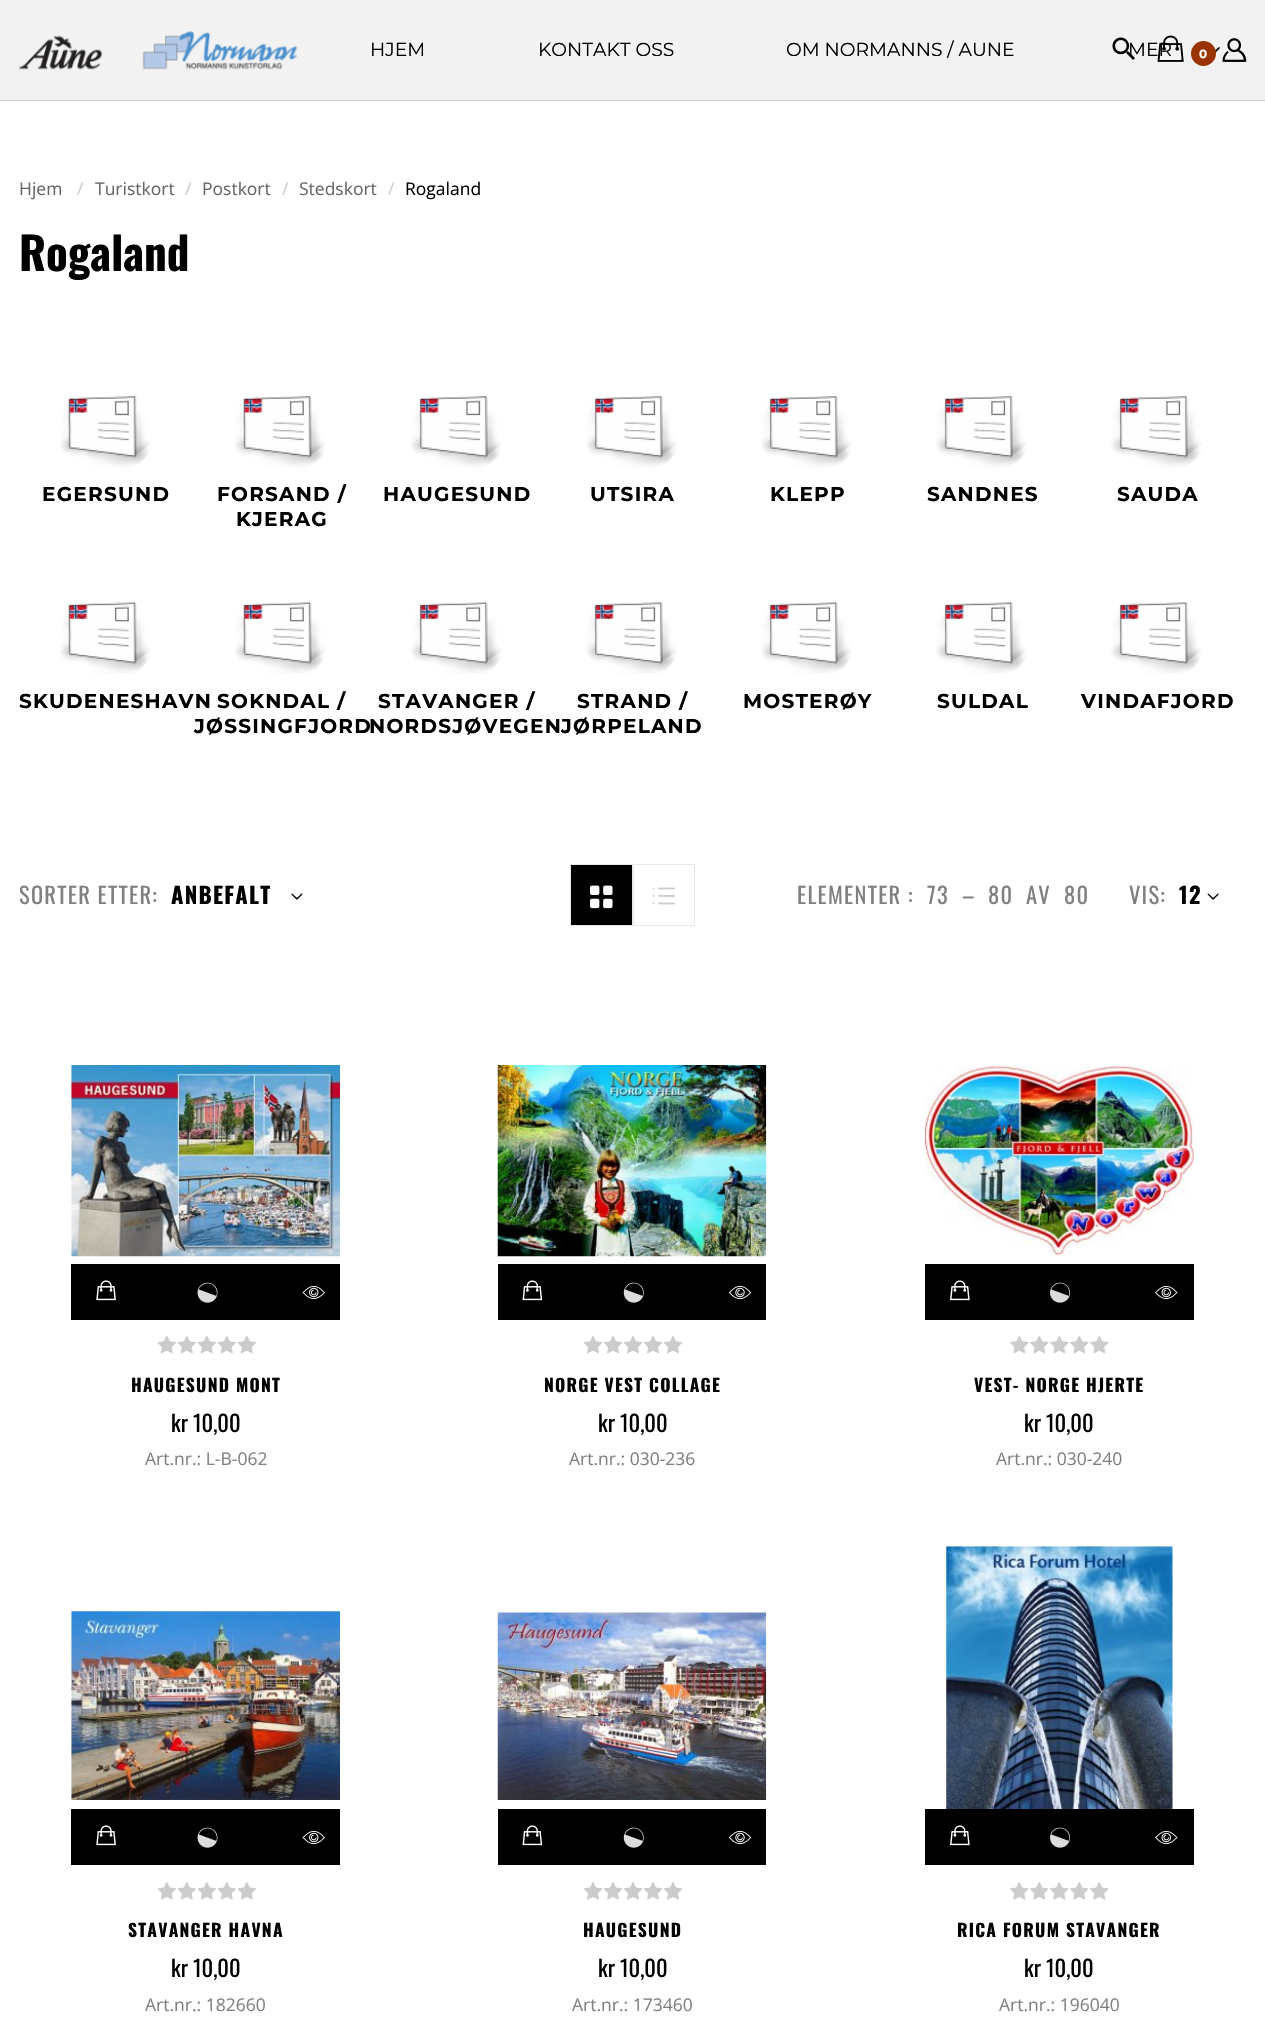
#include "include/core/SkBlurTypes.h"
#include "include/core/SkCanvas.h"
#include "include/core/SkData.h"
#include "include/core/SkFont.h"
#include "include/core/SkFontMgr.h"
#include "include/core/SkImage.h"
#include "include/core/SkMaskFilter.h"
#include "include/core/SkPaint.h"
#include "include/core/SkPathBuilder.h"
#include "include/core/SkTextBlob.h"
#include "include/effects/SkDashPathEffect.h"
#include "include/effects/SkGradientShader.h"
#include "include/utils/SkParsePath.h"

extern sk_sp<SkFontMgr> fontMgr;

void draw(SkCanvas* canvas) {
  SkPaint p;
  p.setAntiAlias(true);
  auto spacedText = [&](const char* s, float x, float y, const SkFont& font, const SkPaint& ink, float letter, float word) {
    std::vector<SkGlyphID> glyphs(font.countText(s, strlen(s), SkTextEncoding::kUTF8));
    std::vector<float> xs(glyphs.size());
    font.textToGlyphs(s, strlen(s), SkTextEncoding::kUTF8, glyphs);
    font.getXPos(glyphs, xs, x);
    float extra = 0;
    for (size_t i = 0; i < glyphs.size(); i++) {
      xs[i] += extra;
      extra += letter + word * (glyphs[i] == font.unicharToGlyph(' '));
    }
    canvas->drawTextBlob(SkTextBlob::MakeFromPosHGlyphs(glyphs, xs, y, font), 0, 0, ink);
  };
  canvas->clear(SK_ColorWHITE);
  p.setColor(SkColorSetRGB(242, 242, 242));
  canvas->drawRect(SkRect::MakeLTRB(0, 0, 1265, 100), p);
  p.setColor(SkColorSetRGB(204, 204, 204));
  canvas->drawRect(SkRect::MakeLTRB(0, 100, 1265, 101), p);
  canvas->drawImageRect(SkImages::DeferredFromEncodedData(SkData::MakeFromFileName("images/1.png")), SkRect::MakeLTRB(18, 31, 298, 70), SkSamplingOptions());
  canvas->drawImageRect(SkImages::DeferredFromEncodedData(SkData::MakeFromFileName("images/2.png")), SkRect::MakeLTRB(1215, 47, 1220, 53), SkSamplingOptions());
  p.setColor(SkColorSetRGB(153, 51, 0));
  canvas->drawCircle(1203.5f, 53.5f, 12.5f, p);
  canvas->drawImageRect(SkImages::DeferredFromEncodedData(SkData::MakeFromFileName("images/5.png")), SkRect::MakeLTRB(1222, 38, 1247, 62), SkSamplingOptions());
  canvas->drawImageRect(SkImages::DeferredFromEncodedData(SkData::MakeFromFileName("images/6.png")), SkRect::MakeLTRB(60, 396, 150, 468), SkSamplingOptions());
  canvas->drawImageRect(SkImages::DeferredFromEncodedData(SkData::MakeFromFileName("images/7.png")), SkRect::MakeLTRB(235, 396, 325, 468), SkSamplingOptions());
  canvas->drawImageRect(SkImages::DeferredFromEncodedData(SkData::MakeFromFileName("images/8.png")), SkRect::MakeLTRB(411, 396, 502, 468), SkSamplingOptions());
  canvas->drawImageRect(SkImages::DeferredFromEncodedData(SkData::MakeFromFileName("images/9.png")), SkRect::MakeLTRB(586, 396, 677, 468), SkSamplingOptions());
  canvas->drawImageRect(SkImages::DeferredFromEncodedData(SkData::MakeFromFileName("images/10.png")), SkRect::MakeLTRB(761, 396, 852, 468), SkSamplingOptions());
  canvas->drawImageRect(SkImages::DeferredFromEncodedData(SkData::MakeFromFileName("images/11.png")), SkRect::MakeLTRB(936, 396, 1027, 468), SkSamplingOptions());
  canvas->drawImageRect(SkImages::DeferredFromEncodedData(SkData::MakeFromFileName("images/12.png")), SkRect::MakeLTRB(1111, 396, 1202, 468), SkSamplingOptions());
  canvas->drawImageRect(SkImages::DeferredFromEncodedData(SkData::MakeFromFileName("images/13.png")), SkRect::MakeLTRB(60, 602, 151, 674), SkSamplingOptions());
  canvas->drawImageRect(SkImages::DeferredFromEncodedData(SkData::MakeFromFileName("images/14.png")), SkRect::MakeLTRB(235, 602, 326, 674), SkSamplingOptions());
  canvas->drawImageRect(SkImages::DeferredFromEncodedData(SkData::MakeFromFileName("images/15.png")), SkRect::MakeLTRB(411, 602, 502, 674), SkSamplingOptions());
  canvas->drawImageRect(SkImages::DeferredFromEncodedData(SkData::MakeFromFileName("images/16.png")), SkRect::MakeLTRB(586, 602, 677, 674), SkSamplingOptions());
  canvas->drawImageRect(SkImages::DeferredFromEncodedData(SkData::MakeFromFileName("images/17.png")), SkRect::MakeLTRB(761, 602, 852, 674), SkSamplingOptions());
  canvas->drawImageRect(SkImages::DeferredFromEncodedData(SkData::MakeFromFileName("images/18.png")), SkRect::MakeLTRB(936, 602, 1027, 674), SkSamplingOptions());
  canvas->drawImageRect(SkImages::DeferredFromEncodedData(SkData::MakeFromFileName("images/19.png")), SkRect::MakeLTRB(1111, 602, 1202, 674), SkSamplingOptions());
  canvas->drawImageRect(SkImages::DeferredFromEncodedData(SkData::MakeFromFileName("images/20.png")), SkRect::MakeLTRB(291, 893, 303, 900), SkSamplingOptions());
  p.setColor(SK_ColorBLACK);
  canvas->drawRect(SkRect::MakeLTRB(570.5f, 864.5f, 632.5f, 925.5f), p);
  p.setStyle(SkPaint::kStroke_Style);
  p.setStrokeWidth(1);
  p.setColor(SkColorSetRGB(231, 232, 236));
  canvas->drawRect(SkRect::MakeLTRB(570.5f, 864.5f, 632.5f, 925.5f), p);
  canvas->drawImageRect(SkImages::DeferredFromEncodedData(SkData::MakeFromFileName("images/21.png")), SkRect::MakeLTRB(590, 885, 613, 909), SkSamplingOptions());
  canvas->drawRect(SkRect::MakeLTRB(633.5f, 864.5f, 694.5f, 925.5f), p);
  canvas->drawImageRect(SkImages::DeferredFromEncodedData(SkData::MakeFromFileName("images/22.png")), SkRect::MakeLTRB(652, 887, 675, 905), SkSamplingOptions());
  canvas->drawImageRect(SkImages::DeferredFromEncodedData(SkData::MakeFromFileName("images/23.png")), SkRect::MakeLTRB(1207, 893, 1219, 900), SkSamplingOptions());
  canvas->drawImageRect(SkImages::DeferredFromEncodedData(SkData::MakeFromFileName("images/24.png")), SkRect::MakeLTRB(71, 1065, 340, 1257), SkSamplingOptions());
  p.setStyle(SkPaint::kFill_Style);
  p.setColor(SK_ColorBLACK);
  canvas->drawRect(SkRect::MakeLTRB(71, 1264, 340, 1320), p);
  canvas->drawImageRect(SkImages::DeferredFromEncodedData(SkData::MakeFromFileName("images/25.png")), SkRect::MakeLTRB(96, 1280, 116, 1301), SkSamplingOptions());
  canvas->drawImageRect(SkImages::DeferredFromEncodedData(SkData::MakeFromFileName("images/26.png")), SkRect::MakeLTRB(197, 1282, 218, 1303), SkSamplingOptions());
  canvas->drawImageRect(SkImages::DeferredFromEncodedData(SkData::MakeFromFileName("images/27.png")), SkRect::MakeLTRB(302, 1285, 325, 1300), SkSamplingOptions());
  canvas->drawImageRect(SkImages::DeferredFromEncodedData(SkData::MakeFromFileName("images/28.png")), SkRect::MakeLTRB(157, 1335, 176, 1354), SkSamplingOptions());
  canvas->drawImageRect(SkImages::DeferredFromEncodedData(SkData::MakeFromFileName("images/28.png")), SkRect::MakeLTRB(177, 1335, 196, 1354), SkSamplingOptions());
  canvas->drawImageRect(SkImages::DeferredFromEncodedData(SkData::MakeFromFileName("images/28.png")), SkRect::MakeLTRB(197, 1335, 216, 1354), SkSamplingOptions());
  canvas->drawImageRect(SkImages::DeferredFromEncodedData(SkData::MakeFromFileName("images/28.png")), SkRect::MakeLTRB(217, 1335, 236, 1354), SkSamplingOptions());
  canvas->drawImageRect(SkImages::DeferredFromEncodedData(SkData::MakeFromFileName("images/28.png")), SkRect::MakeLTRB(237, 1335, 256, 1354), SkSamplingOptions());
  canvas->drawImageRect(SkImages::DeferredFromEncodedData(SkData::MakeFromFileName("images/29.png")), SkRect::MakeLTRB(497, 1065, 767, 1257), SkSamplingOptions());
  canvas->drawRect(SkRect::MakeLTRB(498, 1264, 766, 1320), p);
  canvas->drawImageRect(SkImages::DeferredFromEncodedData(SkData::MakeFromFileName("images/30.png")), SkRect::MakeLTRB(522, 1280, 543, 1301), SkSamplingOptions());
  canvas->drawImageRect(SkImages::DeferredFromEncodedData(SkData::MakeFromFileName("images/31.png")), SkRect::MakeLTRB(623, 1282, 644, 1303), SkSamplingOptions());
  canvas->drawImageRect(SkImages::DeferredFromEncodedData(SkData::MakeFromFileName("images/32.png")), SkRect::MakeLTRB(728, 1285, 752, 1300), SkSamplingOptions());
  canvas->drawImageRect(SkImages::DeferredFromEncodedData(SkData::MakeFromFileName("images/33.png")), SkRect::MakeLTRB(583, 1335, 603, 1354), SkSamplingOptions());
  canvas->drawImageRect(SkImages::DeferredFromEncodedData(SkData::MakeFromFileName("images/33.png")), SkRect::MakeLTRB(603, 1335, 623, 1354), SkSamplingOptions());
  canvas->drawImageRect(SkImages::DeferredFromEncodedData(SkData::MakeFromFileName("images/33.png")), SkRect::MakeLTRB(623, 1335, 643, 1354), SkSamplingOptions());
  canvas->drawImageRect(SkImages::DeferredFromEncodedData(SkData::MakeFromFileName("images/33.png")), SkRect::MakeLTRB(643, 1335, 663, 1354), SkSamplingOptions());
  canvas->drawImageRect(SkImages::DeferredFromEncodedData(SkData::MakeFromFileName("images/33.png")), SkRect::MakeLTRB(663, 1335, 683, 1354), SkSamplingOptions());
  canvas->drawImageRect(SkImages::DeferredFromEncodedData(SkData::MakeFromFileName("images/34.png")), SkRect::MakeLTRB(925, 1066, 1194, 1255), SkSamplingOptions());
  canvas->drawRect(SkRect::MakeLTRB(925, 1264, 1194, 1320), p);
  canvas->drawImageRect(SkImages::DeferredFromEncodedData(SkData::MakeFromFileName("images/35.png")), SkRect::MakeLTRB(950, 1280, 970, 1301), SkSamplingOptions());
  canvas->drawImageRect(SkImages::DeferredFromEncodedData(SkData::MakeFromFileName("images/36.png")), SkRect::MakeLTRB(1050, 1282, 1070, 1303), SkSamplingOptions());
  canvas->drawImageRect(SkImages::DeferredFromEncodedData(SkData::MakeFromFileName("images/37.png")), SkRect::MakeLTRB(1155, 1285, 1178, 1300), SkSamplingOptions());
  canvas->drawImageRect(SkImages::DeferredFromEncodedData(SkData::MakeFromFileName("images/38.png")), SkRect::MakeLTRB(1010, 1335, 1029, 1354), SkSamplingOptions());
  canvas->drawImageRect(SkImages::DeferredFromEncodedData(SkData::MakeFromFileName("images/38.png")), SkRect::MakeLTRB(1030, 1335, 1049, 1354), SkSamplingOptions());
  canvas->drawImageRect(SkImages::DeferredFromEncodedData(SkData::MakeFromFileName("images/38.png")), SkRect::MakeLTRB(1050, 1335, 1069, 1354), SkSamplingOptions());
  canvas->drawImageRect(SkImages::DeferredFromEncodedData(SkData::MakeFromFileName("images/38.png")), SkRect::MakeLTRB(1070, 1335, 1089, 1354), SkSamplingOptions());
  canvas->drawImageRect(SkImages::DeferredFromEncodedData(SkData::MakeFromFileName("images/38.png")), SkRect::MakeLTRB(1090, 1335, 1109, 1354), SkSamplingOptions());
  canvas->drawImageRect(SkImages::DeferredFromEncodedData(SkData::MakeFromFileName("images/39.png")), SkRect::MakeLTRB(71, 1611, 340, 1800), SkSamplingOptions());
  canvas->drawRect(SkRect::MakeLTRB(71, 1809, 340, 1865), p);
  canvas->drawImageRect(SkImages::DeferredFromEncodedData(SkData::MakeFromFileName("images/25.png")), SkRect::MakeLTRB(96, 1825, 116, 1846), SkSamplingOptions());
  canvas->drawImageRect(SkImages::DeferredFromEncodedData(SkData::MakeFromFileName("images/26.png")), SkRect::MakeLTRB(197, 1827, 218, 1848), SkSamplingOptions());
  canvas->drawImageRect(SkImages::DeferredFromEncodedData(SkData::MakeFromFileName("images/27.png")), SkRect::MakeLTRB(302, 1830, 325, 1845), SkSamplingOptions());
  canvas->drawImageRect(SkImages::DeferredFromEncodedData(SkData::MakeFromFileName("images/40.png")), SkRect::MakeLTRB(157, 1882, 176, 1900), SkSamplingOptions());
  canvas->drawImageRect(SkImages::DeferredFromEncodedData(SkData::MakeFromFileName("images/40.png")), SkRect::MakeLTRB(177, 1882, 196, 1900), SkSamplingOptions());
  canvas->drawImageRect(SkImages::DeferredFromEncodedData(SkData::MakeFromFileName("images/40.png")), SkRect::MakeLTRB(197, 1882, 216, 1900), SkSamplingOptions());
  canvas->drawImageRect(SkImages::DeferredFromEncodedData(SkData::MakeFromFileName("images/40.png")), SkRect::MakeLTRB(217, 1882, 236, 1900), SkSamplingOptions());
  canvas->drawImageRect(SkImages::DeferredFromEncodedData(SkData::MakeFromFileName("images/40.png")), SkRect::MakeLTRB(237, 1882, 256, 1900), SkSamplingOptions());
  canvas->drawImageRect(SkImages::DeferredFromEncodedData(SkData::MakeFromFileName("images/41.png")), SkRect::MakeLTRB(497, 1612, 767, 1800), SkSamplingOptions());
  canvas->drawRect(SkRect::MakeLTRB(498, 1809, 766, 1865), p);
  canvas->drawImageRect(SkImages::DeferredFromEncodedData(SkData::MakeFromFileName("images/30.png")), SkRect::MakeLTRB(522, 1825, 543, 1846), SkSamplingOptions());
  canvas->drawImageRect(SkImages::DeferredFromEncodedData(SkData::MakeFromFileName("images/31.png")), SkRect::MakeLTRB(623, 1827, 644, 1848), SkSamplingOptions());
  canvas->drawImageRect(SkImages::DeferredFromEncodedData(SkData::MakeFromFileName("images/32.png")), SkRect::MakeLTRB(728, 1830, 752, 1845), SkSamplingOptions());
  canvas->drawImageRect(SkImages::DeferredFromEncodedData(SkData::MakeFromFileName("images/42.png")), SkRect::MakeLTRB(583, 1882, 603, 1900), SkSamplingOptions());
  canvas->drawImageRect(SkImages::DeferredFromEncodedData(SkData::MakeFromFileName("images/42.png")), SkRect::MakeLTRB(603, 1882, 623, 1900), SkSamplingOptions());
  canvas->drawImageRect(SkImages::DeferredFromEncodedData(SkData::MakeFromFileName("images/42.png")), SkRect::MakeLTRB(623, 1882, 643, 1900), SkSamplingOptions());
  canvas->drawImageRect(SkImages::DeferredFromEncodedData(SkData::MakeFromFileName("images/42.png")), SkRect::MakeLTRB(643, 1882, 663, 1900), SkSamplingOptions());
  canvas->drawImageRect(SkImages::DeferredFromEncodedData(SkData::MakeFromFileName("images/42.png")), SkRect::MakeLTRB(663, 1882, 683, 1900), SkSamplingOptions());
  canvas->drawImageRect(SkImages::DeferredFromEncodedData(SkData::MakeFromFileName("images/43.png")), SkRect::MakeLTRB(946, 1546, 1173, 1809), SkSamplingOptions());
  canvas->drawRect(SkRect::MakeLTRB(925, 1809, 1194, 1865), p);
  canvas->drawImageRect(SkImages::DeferredFromEncodedData(SkData::MakeFromFileName("images/35.png")), SkRect::MakeLTRB(950, 1825, 970, 1846), SkSamplingOptions());
  canvas->drawImageRect(SkImages::DeferredFromEncodedData(SkData::MakeFromFileName("images/36.png")), SkRect::MakeLTRB(1050, 1827, 1070, 1848), SkSamplingOptions());
  canvas->drawImageRect(SkImages::DeferredFromEncodedData(SkData::MakeFromFileName("images/37.png")), SkRect::MakeLTRB(1155, 1830, 1178, 1845), SkSamplingOptions());
  canvas->drawImageRect(SkImages::DeferredFromEncodedData(SkData::MakeFromFileName("images/44.png")), SkRect::MakeLTRB(1010, 1882, 1029, 1900), SkSamplingOptions());
  canvas->drawImageRect(SkImages::DeferredFromEncodedData(SkData::MakeFromFileName("images/44.png")), SkRect::MakeLTRB(1030, 1882, 1049, 1900), SkSamplingOptions());
  canvas->drawImageRect(SkImages::DeferredFromEncodedData(SkData::MakeFromFileName("images/44.png")), SkRect::MakeLTRB(1050, 1882, 1069, 1900), SkSamplingOptions());
  canvas->drawImageRect(SkImages::DeferredFromEncodedData(SkData::MakeFromFileName("images/44.png")), SkRect::MakeLTRB(1070, 1882, 1089, 1900), SkSamplingOptions());
  canvas->drawImageRect(SkImages::DeferredFromEncodedData(SkData::MakeFromFileName("images/44.png")), SkRect::MakeLTRB(1090, 1882, 1109, 1900), SkSamplingOptions());
  SkFont font1(fontMgr->matchFamilyStyle("Montserrat", SkFontStyle::Normal()), 18.75f);
  font1.setSubpixel(true);
  canvas->drawString("HJEM", 370, 56, font1, p);
  canvas->drawString("KONTAKT OSS", 538, 56, font1, p);
  canvas->drawString("OM NORMANNS / AUNE", 786, 56, font1, p);
  canvas->drawString("MER", 1128, 56, font1, p);
  canvas->drawImageRect(SkImages::DeferredFromEncodedData(SkData::MakeFromFileName("images/3.png")), SkRect::MakeLTRB(1112, 37, 1135, 60), SkSamplingOptions());
  canvas->drawImageRect(SkImages::DeferredFromEncodedData(SkData::MakeFromFileName("images/4.png")), SkRect::MakeLTRB(1157, 35, 1184, 62), SkSamplingOptions());
  SkFont font2(fontMgr->matchFamilyStyle("Montserrat", SkFontStyle::Bold()), 12);
  font2.setSubpixel(true);
  p.setColor(SK_ColorWHITE);
  canvas->drawString("0", 1199, 58, font2, p);
  SkFont font3(fontMgr->matchFamilyStyle("Open Sans", SkFontStyle::Normal()), 17.5f);
  font3.setSubpixel(true);
  p.setColor(SkColorSetRGB(102, 102, 102));
  canvas->drawString("Hjem", 19, 195, font3, p);
  p.setColor(SkColorSetRGB(204, 204, 204));
  canvas->drawString("/", 77, 195, font3, p);
  p.setColor(SkColorSetRGB(102, 102, 102));
  canvas->drawString("Turistkort", 95, 195, font3, p);
  p.setColor(SkColorSetRGB(204, 204, 204));
  canvas->drawString("/", 185, 195, font3, p);
  p.setColor(SkColorSetRGB(102, 102, 102));
  canvas->drawString("Postkort", 202, 195, font3, p);
  p.setColor(SkColorSetRGB(204, 204, 204));
  canvas->drawString("/", 282, 195, font3, p);
  p.setColor(SkColorSetRGB(102, 102, 102));
  canvas->drawString("Stedskort", 299, 195, font3, p);
  p.setColor(SkColorSetRGB(204, 204, 204));
  canvas->drawString("/", 388, 195, font3, p);
  p.setColor(SK_ColorBLACK);
  canvas->drawString("Rogaland", 405, 195, font3, p);
  SkFont font4(fontMgr->matchFamilyStyle("Oswald", SkFontStyle::Bold()), 45);
  font4.setSubpixel(true);
  canvas->drawString("Rogaland", 19, 271, font4, p);
  SkFont font5(fontMgr->matchFamilyStyle("Montserrat", SkFontStyle::Bold()), 20);
  font5.setSubpixel(true);
  spacedText("EGERSUND", 42, 501, font5, p, 1.25f, 0);
  spacedText("FORSAND /", 217, 501, font5, p, 1.25f, 0);
  spacedText("KJERAG", 236, 526, font5, p, 1.25f, 0);
  spacedText("HAUGESUND", 383, 501, font5, p, 1.25f, 0);
  spacedText("UTSIRA", 590, 501, font5, p, 1.25f, 0);
  spacedText("KLEPP", 770, 501, font5, p, 1.25f, 0);
  spacedText("SANDNES", 927, 501, font5, p, 1.25f, 0);
  spacedText("SAUDA", 1117, 501, font5, p, 1.25f, 0);
  spacedText("SKUDENESHAVN", 19, 708, font5, p, 1.25f, 0);
  spacedText("SOKNDAL /", 217, 708, font5, p, 1.25f, 0);
  spacedText("JØSSINGFJORD", 194, 733, font5, p, 1.25f, 0);
  spacedText("STAVANGER /", 378, 708, font5, p, 1.25f, 0);
  spacedText("NORDSJØVEGEN", 369, 733, font5, p, 1.25f, 0);
  spacedText("STRAND /", 577, 708, font5, p, 1.25f, 0);
  spacedText("JØRPELAND", 561, 733, font5, p, 1.25f, 0);
  spacedText("MOSTERØY", 743, 708, font5, p, 1.25f, 0);
  spacedText("SULDAL", 937, 708, font5, p, 1.25f, 0);
  spacedText("VINDAFJORD", 1081, 708, font5, p, 1.25f, 0);
  SkFont font6(fontMgr->matchFamilyStyle("Oswald", SkFontStyle::Normal()), 22.5f);
  font6.setSubpixel(true);
  p.setColor(SkColorSetRGB(128, 128, 128));
  spacedText("SORTER ETTER:", 19, 904, font6, p, 1.25f, 0);
  SkFont font7(fontMgr->matchFamilyStyle("Oswald", SkFontStyle::Bold()), 22.5f);
  font7.setSubpixel(true);
  p.setColor(SK_ColorBLACK);
  spacedText("ANBEFALT", 171, 904, font7, p, 1.25f, 0);
  p.setColor(SkColorSetRGB(128, 128, 128));
  spacedText("ELEMENTER :", 797, 904, font6, p, 1.25f, 0);
  spacedText("73", 927, 904, font6, p, 1.25f, 0);
  spacedText("–", 962, 904, font6, p, 1.25f, 0);
  spacedText("80", 988, 904, font6, p, 1.25f, 0);
  spacedText("AV", 1026, 904, font6, p, 1.25f, 0);
  spacedText("80", 1064, 904, font6, p, 1.25f, 0);
  spacedText("VIS:", 1129, 904, font6, p, 1.25f, 0);
  p.setColor(SK_ColorBLACK);
  spacedText("12", 1179, 904, font7, p, 1.25f, 0);
  SkFont font8(fontMgr->matchFamilyStyle("Oswald", SkFontStyle::Bold()), 17.5f);
  font8.setSubpixel(true);
  spacedText("HAUGESUND MONT", 131, 1392, font8, p, 1.25f, 0);
  canvas->drawString("kr 10,00", 171, 1432, font6, p);
  p.setColor(SkColorSetRGB(128, 128, 128));
  canvas->drawString("Art.nr.: L-B-062", 145, 1465, font3, p);
  p.setColor(SK_ColorBLACK);
  spacedText("NORGE VEST COLLAGE", 544, 1392, font8, p, 1.25f, 0);
  canvas->drawString("kr 10,00", 598, 1432, font6, p);
  p.setColor(SkColorSetRGB(128, 128, 128));
  canvas->drawString("Art.nr.: 030-236", 569, 1465, font3, p);
  p.setColor(SK_ColorBLACK);
  spacedText("VEST- NORGE HJERTE", 974, 1392, font8, p, 1.25f, 0);
  canvas->drawString("kr 10,00", 1024, 1432, font6, p);
  p.setColor(SkColorSetRGB(128, 128, 128));
  canvas->drawString("Art.nr.: 030-240", 996, 1465, font3, p);
  p.setColor(SK_ColorBLACK);
  spacedText("STAVANGER HAVNA", 128, 1937, font8, p, 1.25f, 0);
  canvas->drawString("kr 10,00", 171, 1977, font6, p);
  p.setColor(SkColorSetRGB(128, 128, 128));
  canvas->drawString("Art.nr.: 182660", 145, 2011, font3, p);
  p.setColor(SK_ColorBLACK);
  spacedText("HAUGESUND", 583, 1937, font8, p, 1.25f, 0);
  canvas->drawString("kr 10,00", 598, 1977, font6, p);
  p.setColor(SkColorSetRGB(128, 128, 128));
  canvas->drawString("Art.nr.: 173460", 572, 2011, font3, p);
  p.setColor(SK_ColorBLACK);
  spacedText("RICA FORUM STAVANGER", 957, 1937, font8, p, 1.25f, 0);
  canvas->drawString("kr 10,00", 1024, 1977, font6, p);
  p.setColor(SkColorSetRGB(128, 128, 128));
  canvas->drawString("Art.nr.: 196040", 999, 2011, font3, p);
}
